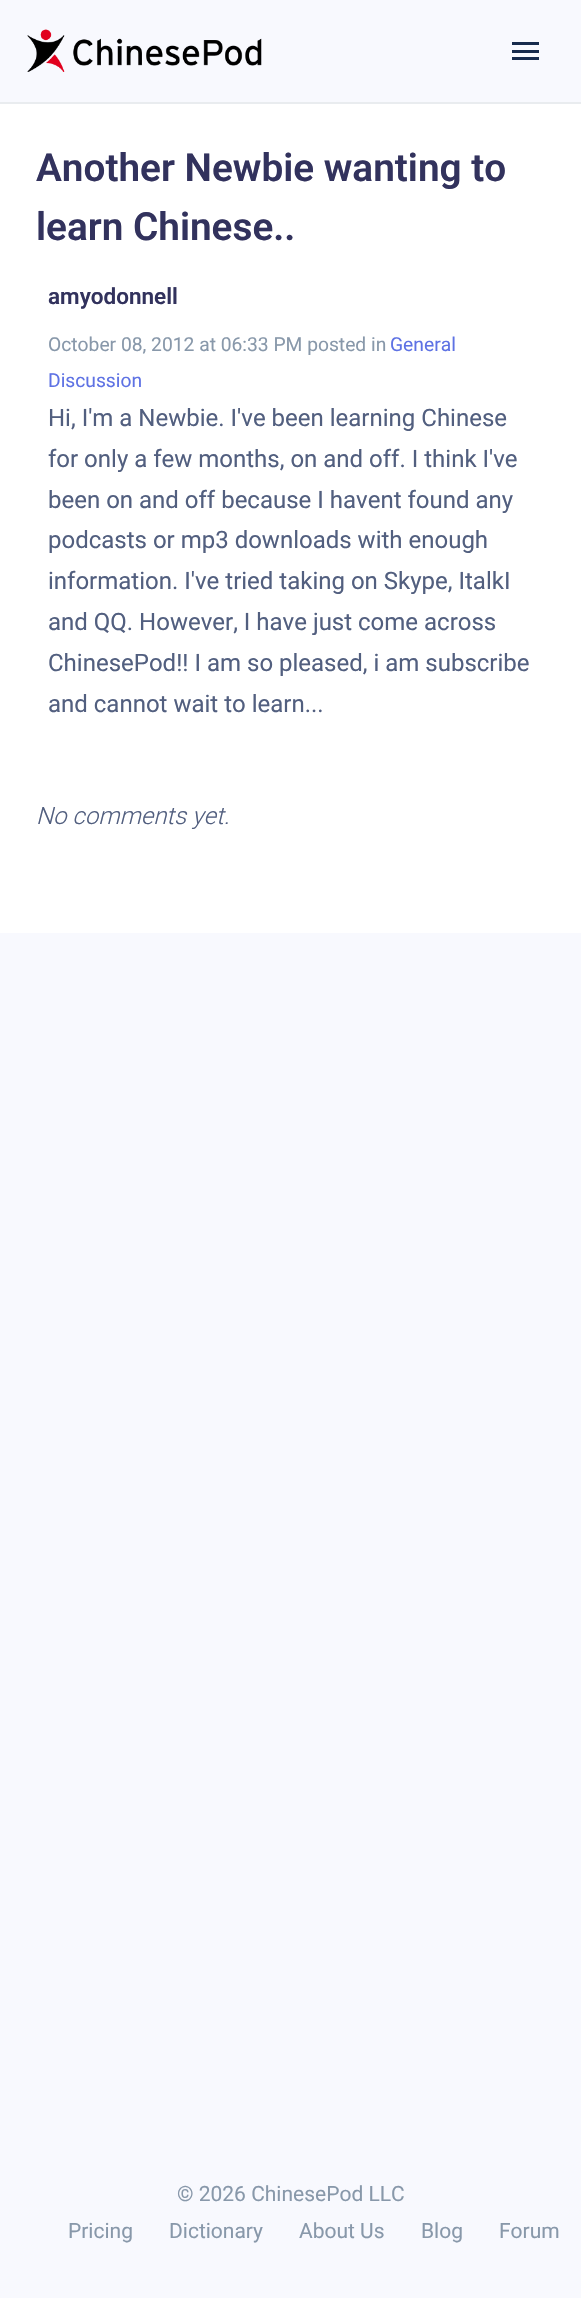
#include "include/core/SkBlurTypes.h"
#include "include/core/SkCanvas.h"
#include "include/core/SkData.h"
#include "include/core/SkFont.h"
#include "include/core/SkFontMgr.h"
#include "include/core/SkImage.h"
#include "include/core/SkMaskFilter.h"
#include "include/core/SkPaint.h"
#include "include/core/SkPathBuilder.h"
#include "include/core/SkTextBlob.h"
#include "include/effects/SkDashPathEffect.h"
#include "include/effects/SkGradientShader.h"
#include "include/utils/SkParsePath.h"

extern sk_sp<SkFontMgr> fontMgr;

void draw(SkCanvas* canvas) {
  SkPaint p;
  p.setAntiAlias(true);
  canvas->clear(SkColorSetRGB(248, 249, 254));
  p.setColor(SkColorSetRGB(233, 236, 239));
  canvas->drawRect(SkRect::MakeLTRB(0, 102, 581, 104), p);
  canvas->drawImageRect(SkImages::DeferredFromEncodedData(SkData::MakeFromFileName("images/1.png")), SkRect::MakeLTRB(27, 29, 262, 72), SkSamplingOptions());
  p.setColor(SkColorSetRGB(23, 43, 77));
  canvas->drawRect(SkRect::MakeLTRB(512, 42, 539, 45), p);
  canvas->drawRect(SkRect::MakeLTRB(512, 50, 539, 53), p);
  canvas->drawRect(SkRect::MakeLTRB(512, 57, 539, 60), p);
  p.setColor(SK_ColorWHITE);
  canvas->drawRect(SkRect::MakeLTRB(0, 104, 581, 933), p);
  SkFont font1(fontMgr->matchFamilyStyle("Roboto", SkFontStyle(600, SkFontStyle::kNormal_Width, SkFontStyle::kUpright_Slant)), 38.75f);
  font1.setSubpixel(true);
  p.setColor(SkColorSetRGB(50, 50, 93));
  canvas->drawString("Another Newbie wanting to", 36, 181, font1, p);
  canvas->drawString("learn Chinese..", 36, 240, font1, p);
  SkFont font2(fontMgr->matchFamilyStyle("Roboto", SkFontStyle(600, SkFontStyle::kNormal_Width, SkFontStyle::kUpright_Slant)), 22.5f);
  font2.setSubpixel(true);
  canvas->drawString("amyodonnell", 48, 304, font2, p);
  SkFont font3(fontMgr->matchFamilyStyle("Roboto", SkFontStyle::Normal()), 19.25f);
  font3.setSubpixel(true);
  p.setColor(SkColorSetRGB(136, 152, 170));
  canvas->drawString("October 08, 2012 at 06:33 PM posted in", 48, 351, font3, p);
  p.setColor(SkColorSetRGB(94, 114, 228));
  canvas->drawString("General", 390, 351, font3, p);
  canvas->drawString("Discussion", 48, 387, font3, p);
  SkFont font4(fontMgr->matchFamilyStyle("Roboto", SkFontStyle::Normal()), 24);
  font4.setSubpixel(true);
  p.setColor(SkColorSetRGB(82, 95, 127));
  canvas->drawString("Hi, I'm a Newbie. I've been learning Chinese", 48, 426, font4, p);
  canvas->drawString("for only a few months, on and off. I think I've", 48, 467, font4, p);
  canvas->drawString("been on and off because I havent found any", 48, 508, font4, p);
  canvas->drawString("podcasts or mp3 downloads with enough", 48, 548, font4, p);
  canvas->drawString("information. I've tried taking on Skype, ItalkI", 48, 589, font4, p);
  canvas->drawString("and QQ. However, I have just come across", 48, 630, font4, p);
  canvas->drawString("ChinesePod!! I am so pleased, i am subscribe", 48, 671, font4, p);
  canvas->drawString("and cannot wait to learn...", 48, 712, font4, p);
  SkFont font5(fontMgr->matchFamilyStyle("Roboto", SkFontStyle(300, SkFontStyle::kNormal_Width, SkFontStyle::kItalic_Slant)), 24);
  font5.setSubpixel(true);
  canvas->drawString("No comments yet.", 36, 824, font5, p);
  SkFont font6(fontMgr->matchFamilyStyle("Roboto", SkFontStyle::Normal()), 21);
  font6.setSubpixel(true);
  p.setColor(SkColorSetRGB(136, 152, 170));
  canvas->drawString("© 2026 ChinesePod LLC", 177, 2201, font6, p);
  canvas->drawString("Pricing", 68, 2238, font6, p);
  canvas->drawString("Dictionary", 169, 2238, font6, p);
  canvas->drawString("About Us", 299, 2238, font6, p);
  canvas->drawString("Blog", 421, 2238, font6, p);
  canvas->drawString("Forum", 499, 2238, font6, p);
}
